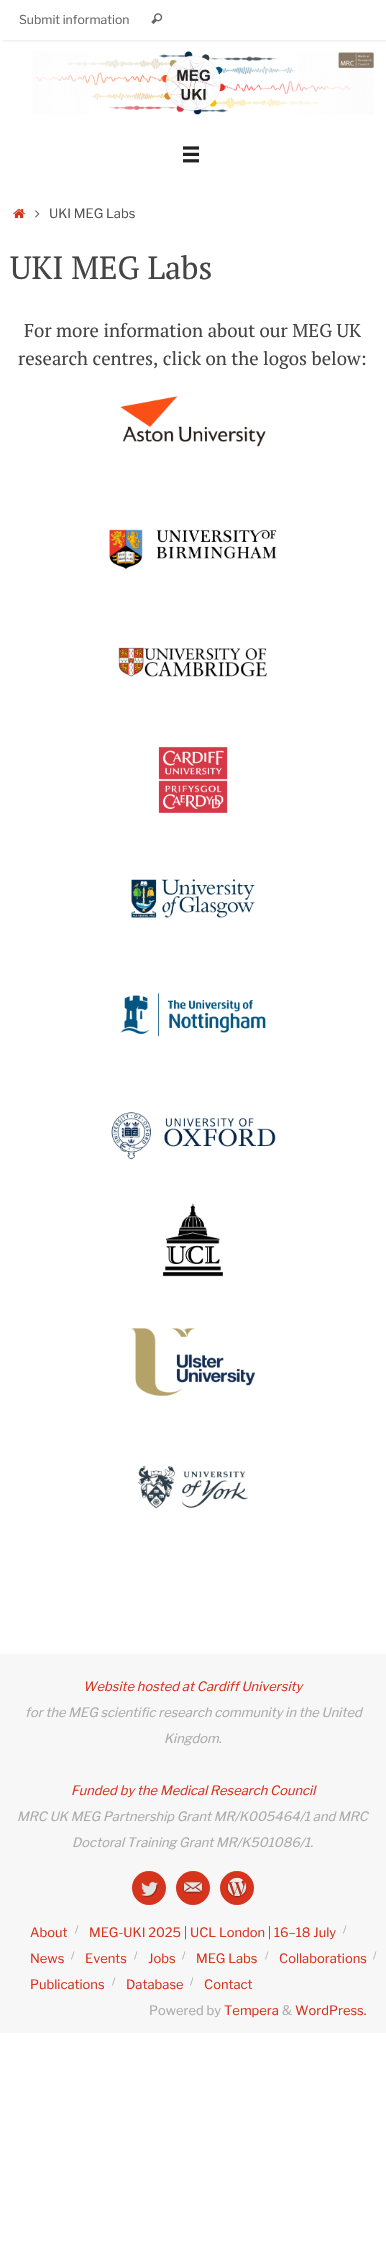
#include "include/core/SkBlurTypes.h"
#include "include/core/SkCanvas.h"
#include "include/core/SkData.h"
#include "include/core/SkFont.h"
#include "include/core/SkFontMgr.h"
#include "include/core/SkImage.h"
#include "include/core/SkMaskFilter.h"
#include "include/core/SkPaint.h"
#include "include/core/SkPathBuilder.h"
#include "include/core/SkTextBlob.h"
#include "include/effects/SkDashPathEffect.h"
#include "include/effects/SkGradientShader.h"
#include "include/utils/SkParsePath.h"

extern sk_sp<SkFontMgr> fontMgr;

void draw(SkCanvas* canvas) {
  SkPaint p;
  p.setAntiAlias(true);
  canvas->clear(SK_ColorWHITE);
  canvas->save();
  canvas->clipRect(SkRect::MakeLTRB(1, 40, 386, 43));
  p.setColor(SkColorSetRGB(215, 215, 215));
  p.setMaskFilter(SkMaskFilter::MakeBlur(kNormal_SkBlurStyle, 1.5f));
  canvas->drawRect(SkRect::MakeLTRB(3, 0, 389, 40), p);
  p.setMaskFilter(nullptr);
  canvas->restore();
  canvas->drawImageRect(SkImages::DeferredFromEncodedData(SkData::MakeFromFileName("images/1.png")), SkRect::MakeLTRB(151, 13, 163, 25), SkSamplingOptions());
  canvas->drawImageRect(SkImages::DeferredFromEncodedData(SkData::MakeFromFileName("images/2.png")), SkRect::MakeLTRB(32, 51, 374, 115), SkSamplingOptions());
  canvas->drawImageRect(SkImages::DeferredFromEncodedData(SkData::MakeFromFileName("images/3.png")), SkRect::MakeLTRB(183, 146, 199, 163), SkSamplingOptions());
  canvas->drawImageRect(SkImages::DeferredFromEncodedData(SkData::MakeFromFileName("images/4.png")), SkRect::MakeLTRB(13, 208, 25, 219), SkSamplingOptions());
  canvas->drawImageRect(SkImages::DeferredFromEncodedData(SkData::MakeFromFileName("images/5.png")), SkRect::MakeLTRB(35, 210, 40, 218), SkSamplingOptions());
  canvas->drawImageRect(SkImages::DeferredFromEncodedData(SkData::MakeFromFileName("images/6.png")), SkRect::MakeLTRB(120, 396, 266, 447), SkSamplingOptions());
  canvas->drawImageRect(SkImages::DeferredFromEncodedData(SkData::MakeFromFileName("images/7.png")), SkRect::MakeLTRB(109, 529, 277, 570), SkSamplingOptions());
  canvas->drawImageRect(SkImages::DeferredFromEncodedData(SkData::MakeFromFileName("images/8.png")), SkRect::MakeLTRB(118, 647, 268, 677), SkSamplingOptions());
  canvas->drawImageRect(SkImages::DeferredFromEncodedData(SkData::MakeFromFileName("images/9.png")), SkRect::MakeLTRB(158, 747, 228, 813), SkSamplingOptions());
  canvas->drawImageRect(SkImages::DeferredFromEncodedData(SkData::MakeFromFileName("images/10.png")), SkRect::MakeLTRB(131, 879, 255, 918), SkSamplingOptions());
  canvas->drawImageRect(SkImages::DeferredFromEncodedData(SkData::MakeFromFileName("images/11.png")), SkRect::MakeLTRB(120, 993, 266, 1037), SkSamplingOptions());
  canvas->drawImageRect(SkImages::DeferredFromEncodedData(SkData::MakeFromFileName("images/12.png")), SkRect::MakeLTRB(111, 1112, 276, 1160), SkSamplingOptions());
  canvas->drawImageRect(SkImages::DeferredFromEncodedData(SkData::MakeFromFileName("images/13.png")), SkRect::MakeLTRB(162, 1203, 223, 1277), SkSamplingOptions());
  canvas->drawImageRect(SkImages::DeferredFromEncodedData(SkData::MakeFromFileName("images/14.png")), SkRect::MakeLTRB(131, 1328, 256, 1396), SkSamplingOptions());
  canvas->drawImageRect(SkImages::DeferredFromEncodedData(SkData::MakeFromFileName("images/15.png")), SkRect::MakeLTRB(138, 1465, 248, 1509), SkSamplingOptions());
  p.setColor(SkColorSetRGB(247, 247, 247));
  canvas->drawRect(SkRect::MakeLTRB(0, 1654, 386, 2033), p);
  p.setColor(SkColorSetRGB(214, 52, 29));
  canvas->drawCircle(149, 1888, 17, p);
  canvas->drawImageRect(SkImages::DeferredFromEncodedData(SkData::MakeFromFileName("images/16.png")), SkRect::MakeLTRB(141, 1882, 159, 1897), SkSamplingOptions());
  canvas->drawCircle(193, 1888, 17, p);
  canvas->drawImageRect(SkImages::DeferredFromEncodedData(SkData::MakeFromFileName("images/17.png")), SkRect::MakeLTRB(183, 1882, 203, 1894), SkSamplingOptions());
  canvas->drawCircle(237, 1888, 17, p);
  canvas->drawImageRect(SkImages::DeferredFromEncodedData(SkData::MakeFromFileName("images/18.png")), SkRect::MakeLTRB(227, 1877, 247, 1898), SkSamplingOptions());
  SkFont font1(fontMgr->matchFamilyStyle("Libre Franklin", SkFontStyle(100, SkFontStyle::kNormal_Width, SkFontStyle::kUpright_Slant)), 12.25f);
  font1.setSubpixel(true);
  p.setColor(SkColorSetRGB(102, 102, 102));
  canvas->drawString("Submit information", 19, 24, font1, p);
  SkFont font2(fontMgr->matchFamilyStyle("Libre Franklin", SkFontStyle(100, SkFontStyle::kNormal_Width, SkFontStyle::kUpright_Slant)), 12.95f);
  font2.setSubpixel(true);
  p.setColor(SkColorSetRGB(85, 85, 85));
  canvas->drawString("UKI MEG Labs", 49, 218, font2, p);
  SkFont font3(fontMgr->matchFamilyStyle("PT Serif", SkFontStyle::Normal()), 32);
  font3.setSubpixel(true);
  p.setColor(SkColorSetRGB(68, 68, 68));
  canvas->drawString("UKI MEG Labs", 10, 279, font3, p);
  SkFont font4(fontMgr->matchFamilyStyle("PT Serif", SkFontStyle::Normal()), 18.6f);
  font4.setSubpixel(true);
  canvas->drawString("For more information about our MEG UK", 24, 337, font4, p);
  canvas->drawString("research centres, click on the logos below:", 18, 365, font4, p);
  SkFont font5(fontMgr->matchFamilyStyle("Libre Franklin", SkFontStyle(100, SkFontStyle::kNormal_Width, SkFontStyle::kItalic_Slant)), 12.95f);
  font5.setSubpixel(true);
  p.setColor(SkColorSetRGB(214, 52, 29));
  canvas->drawString("Website hosted at Cardiff University", 83, 1691, font5, p);
  p.setColor(SkColorSetRGB(170, 170, 170));
  canvas->drawString("for the MEG scientific research community in the United", 25, 1717, font5, p);
  canvas->drawString("Kingdom.", 164, 1743, font5, p);
  p.setColor(SkColorSetRGB(214, 52, 29));
  canvas->drawString("Funded by the Medical Research Council", 71, 1795, font5, p);
  p.setColor(SkColorSetRGB(170, 170, 170));
  canvas->drawString("MRC UK MEG Partnership Grant MR/K005464/1 and MRC", 17, 1821, font5, p);
  canvas->drawString("Doctoral Training Grant MR/K501086/1.", 72, 1847, font5, p);
  p.setColor(SkColorSetRGB(214, 52, 29));
  canvas->drawString("About", 30, 1937, font2, p);
  SkFont font6(fontMgr->matchFamilyStyle("Libre Franklin", SkFontStyle(100, SkFontStyle::kNormal_Width, SkFontStyle::kUpright_Slant)), 10);
  font6.setSubpixel(true);
  p.setColor(SkColorSetRGB(170, 170, 170));
  canvas->drawString("/", 75, 1933, font6, p);
  p.setColor(SkColorSetRGB(214, 52, 29));
  canvas->drawString("MEG-UKI 2025 | UCL London | 16–18 July", 89, 1937, font2, p);
  p.setColor(SkColorSetRGB(170, 170, 170));
  canvas->drawString("/", 343, 1933, font6, p);
  p.setColor(SkColorSetRGB(214, 52, 29));
  canvas->drawString("News", 30, 1963, font2, p);
  p.setColor(SkColorSetRGB(170, 170, 170));
  canvas->drawString("/", 71, 1959, font6, p);
  p.setColor(SkColorSetRGB(214, 52, 29));
  canvas->drawString("Events", 85, 1963, font2, p);
  p.setColor(SkColorSetRGB(170, 170, 170));
  canvas->drawString("/", 134, 1959, font6, p);
  p.setColor(SkColorSetRGB(214, 52, 29));
  canvas->drawString("Jobs", 148, 1963, font2, p);
  p.setColor(SkColorSetRGB(170, 170, 170));
  canvas->drawString("/", 182, 1959, font6, p);
  p.setColor(SkColorSetRGB(214, 52, 29));
  canvas->drawString("MEG Labs", 196, 1963, font2, p);
  p.setColor(SkColorSetRGB(170, 170, 170));
  canvas->drawString("/", 265, 1959, font6, p);
  p.setColor(SkColorSetRGB(214, 52, 29));
  canvas->drawString("Collaborations", 279, 1963, font2, p);
  p.setColor(SkColorSetRGB(170, 170, 170));
  canvas->drawString("/", 373, 1959, font6, p);
  p.setColor(SkColorSetRGB(214, 52, 29));
  canvas->drawString("Publications", 30, 1989, font2, p);
  p.setColor(SkColorSetRGB(170, 170, 170));
  canvas->drawString("/", 112, 1985, font6, p);
  p.setColor(SkColorSetRGB(214, 52, 29));
  canvas->drawString("Database", 126, 1989, font2, p);
  p.setColor(SkColorSetRGB(170, 170, 170));
  canvas->drawString("/", 190, 1985, font6, p);
  p.setColor(SkColorSetRGB(214, 52, 29));
  canvas->drawString("Contact", 204, 1989, font2, p);
  p.setColor(SkColorSetRGB(170, 170, 170));
  canvas->drawString("Powered by", 149, 2015, font2, p);
  p.setColor(SkColorSetRGB(214, 52, 29));
  canvas->drawString("Tempera", 224, 2015, font2, p);
  p.setColor(SkColorSetRGB(170, 170, 170));
  canvas->drawString("&", 282, 2015, font2, p);
  p.setColor(SkColorSetRGB(214, 52, 29));
  canvas->drawString("WordPress.", 295, 2015, font2, p);
}
